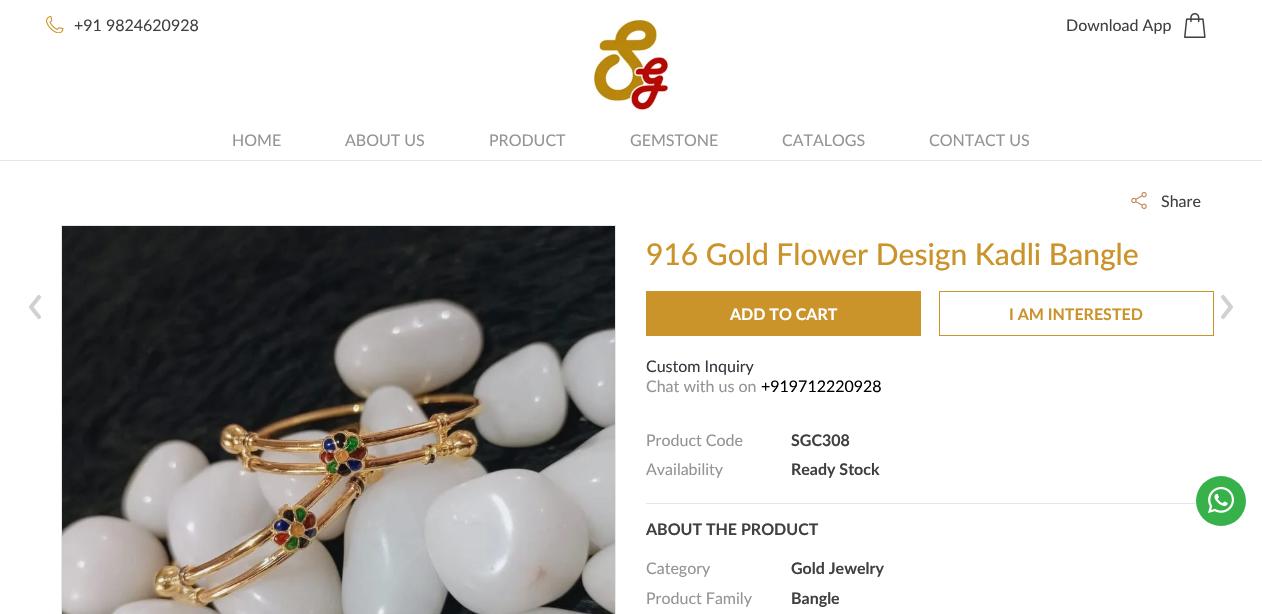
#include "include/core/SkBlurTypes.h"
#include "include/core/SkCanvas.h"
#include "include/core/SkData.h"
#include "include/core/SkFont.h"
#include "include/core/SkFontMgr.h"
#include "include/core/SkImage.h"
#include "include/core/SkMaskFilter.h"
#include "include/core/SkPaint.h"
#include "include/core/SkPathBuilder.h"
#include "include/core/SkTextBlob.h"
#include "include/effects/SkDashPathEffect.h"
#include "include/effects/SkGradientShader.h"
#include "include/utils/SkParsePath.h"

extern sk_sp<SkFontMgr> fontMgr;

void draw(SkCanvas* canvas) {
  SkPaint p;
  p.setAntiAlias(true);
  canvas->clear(SK_ColorWHITE);
  p.setColor(SkColorSetRGB(229, 230, 231));
  canvas->drawRect(SkRect::MakeLTRB(0, 160, 1262, 161), p);
  canvas->drawImageRect(SkImages::DeferredFromEncodedData(SkData::MakeFromFileName("images/1.png")), SkRect::MakeLTRB(46, 16, 64, 33), SkSamplingOptions());
  canvas->drawImageRect(SkImages::DeferredFromEncodedData(SkData::MakeFromFileName("images/2.png")), SkRect::MakeLTRB(592, 19, 672, 111), SkSamplingOptions());
  canvas->drawImageRect(SkImages::DeferredFromEncodedData(SkData::MakeFromFileName("images/3.png")), SkRect::MakeLTRB(1184, 13, 1206, 38), SkSamplingOptions());
  p.setStyle(SkPaint::kStroke_Style);
  p.setStrokeWidth(4.1f);
  p.setStrokeCap(SkPaint::kRound_Cap);
  p.setStrokeJoin(SkPaint::kRound_Join);
  p.setColor(SkColorSetRGB(207, 209, 210));
  canvas->drawPath(SkPathBuilder().moveTo(39, 297).lineTo(31, 307).lineTo(39, 317).detach(), p);
  canvas->drawImageRect(SkImages::DeferredFromEncodedData(SkData::MakeFromFileName("images/4.png")), SkRect::MakeLTRB(1131, 192, 1147, 209), SkSamplingOptions());
  p.setStrokeWidth(1);
  p.setStrokeCap(SkPaint::kButt_Cap);
  p.setStrokeJoin(SkPaint::kMiter_Join);
  p.setColor(SkColorSetRGB(229, 230, 231));
  canvas->drawRect(SkRect::MakeLTRB(61.5f, 225.5f, 615.5f, 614.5f), p);
  canvas->drawImageRect(SkImages::DeferredFromEncodedData(SkData::MakeFromFileName("images/5.png")), SkRect::MakeLTRB(62, 226, 615, 614), SkSamplingOptions());
  p.setStyle(SkPaint::kFill_Style);
  p.setColor(SkColorSetRGB(202, 148, 43));
  canvas->drawRect(SkRect::MakeLTRB(646, 291, 921, 336), p);
  p.setStyle(SkPaint::kStroke_Style);
  canvas->drawRect(SkRect::MakeLTRB(939.5f, 291.5f, 1213.5f, 335.5f), p);
  p.setStyle(SkPaint::kFill_Style);
  p.setColor(SkColorSetRGB(229, 230, 231));
  canvas->drawRect(SkRect::MakeLTRB(646, 503, 1201, 504), p);
  p.setStyle(SkPaint::kStroke_Style);
  p.setStrokeWidth(4.1f);
  p.setStrokeCap(SkPaint::kRound_Cap);
  p.setStrokeJoin(SkPaint::kRound_Join);
  p.setColor(SkColorSetRGB(207, 209, 210));
  canvas->drawPath(SkPathBuilder().moveTo(1223, 317).lineTo(1231, 307).lineTo(1223, 297).detach(), p);
  p.setStyle(SkPaint::kFill_Style);
  p.setColor(SkColorSetRGB(55, 178, 74));
  canvas->drawCircle(1221, 501, 25, p);
  canvas->drawImageRect(SkImages::DeferredFromEncodedData(SkData::MakeFromFileName("images/6.png")), SkRect::MakeLTRB(1208, 487, 1234, 513), SkSamplingOptions());
  SkFont font1(fontMgr->matchFamilyStyle("Lato", SkFontStyle::Normal()), 16);
  font1.setSubpixel(true);
  p.setColor(SkColorSetRGB(64, 64, 65));
  canvas->drawString("+91 9824620928", 74, 31, font1, p);
  canvas->drawString("Download App", 1066, 31, font1, p);
  p.setColor(SkColorSetRGB(146, 148, 151));
  canvas->drawString("HOME", 232, 146, font1, p);
  canvas->drawString("ABOUT US", 345, 146, font1, p);
  canvas->drawString("PRODUCT", 489, 146, font1, p);
  canvas->drawString("GEMSTONE", 630, 146, font1, p);
  canvas->drawString("CATALOGS", 782, 146, font1, p);
  canvas->drawString("CONTACT US", 929, 146, font1, p);
  p.setColor(SkColorSetRGB(64, 64, 65));
  canvas->drawString("Share", 1161, 207, font1, p);
  SkFont font2(fontMgr->matchFamilyStyle("Lato", SkFontStyle(500, SkFontStyle::kNormal_Width, SkFontStyle::kUpright_Slant)), 30);
  font2.setSubpixel(true);
  p.setColor(SkColorSetRGB(202, 148, 43));
  canvas->drawString("916 Gold Flower Design Kadli Bangle", 646, 265, font2, p);
  SkFont font3(fontMgr->matchFamilyStyle("Lato", SkFontStyle::Bold()), 16);
  font3.setSubpixel(true);
  p.setColor(SK_ColorWHITE);
  canvas->drawString("ADD TO CART", 730, 320, font3, p);
  p.setColor(SkColorSetRGB(202, 148, 43));
  canvas->drawString("I AM INTERESTED", 1009, 320, font3, p);
  p.setColor(SkColorSetRGB(52, 58, 64));
  canvas->drawString("Custom Inquiry", 646, 372, font1, p);
  p.setColor(SkColorSetRGB(146, 148, 151));
  canvas->drawString("Chat with us on", 646, 392, font1, p);
  p.setColor(SK_ColorBLACK);
  canvas->drawString("+919712220928", 761, 392, font1, p);
  p.setColor(SkColorSetRGB(146, 148, 151));
  canvas->drawString("Product Code", 646, 446, font1, p);
  p.setColor(SkColorSetRGB(64, 64, 65));
  canvas->drawString("SGC308", 791, 446, font3, p);
  p.setColor(SkColorSetRGB(146, 148, 151));
  canvas->drawString("Availability", 646, 475, font1, p);
  p.setColor(SkColorSetRGB(64, 64, 65));
  canvas->drawString("Ready Stock", 791, 475, font3, p);
  canvas->drawString("ABOUT THE PRODUCT", 646, 535, font3, p);
  p.setColor(SkColorSetRGB(146, 148, 151));
  canvas->drawString("Category", 646, 574, font1, p);
  p.setColor(SkColorSetRGB(64, 64, 65));
  canvas->drawString("Gold Jewelry", 791, 574, font3, p);
  p.setColor(SkColorSetRGB(146, 148, 151));
  canvas->drawString("Product Family", 646, 604, font1, p);
  p.setColor(SkColorSetRGB(64, 64, 65));
  canvas->drawString("Bangle", 791, 604, font3, p);
}
